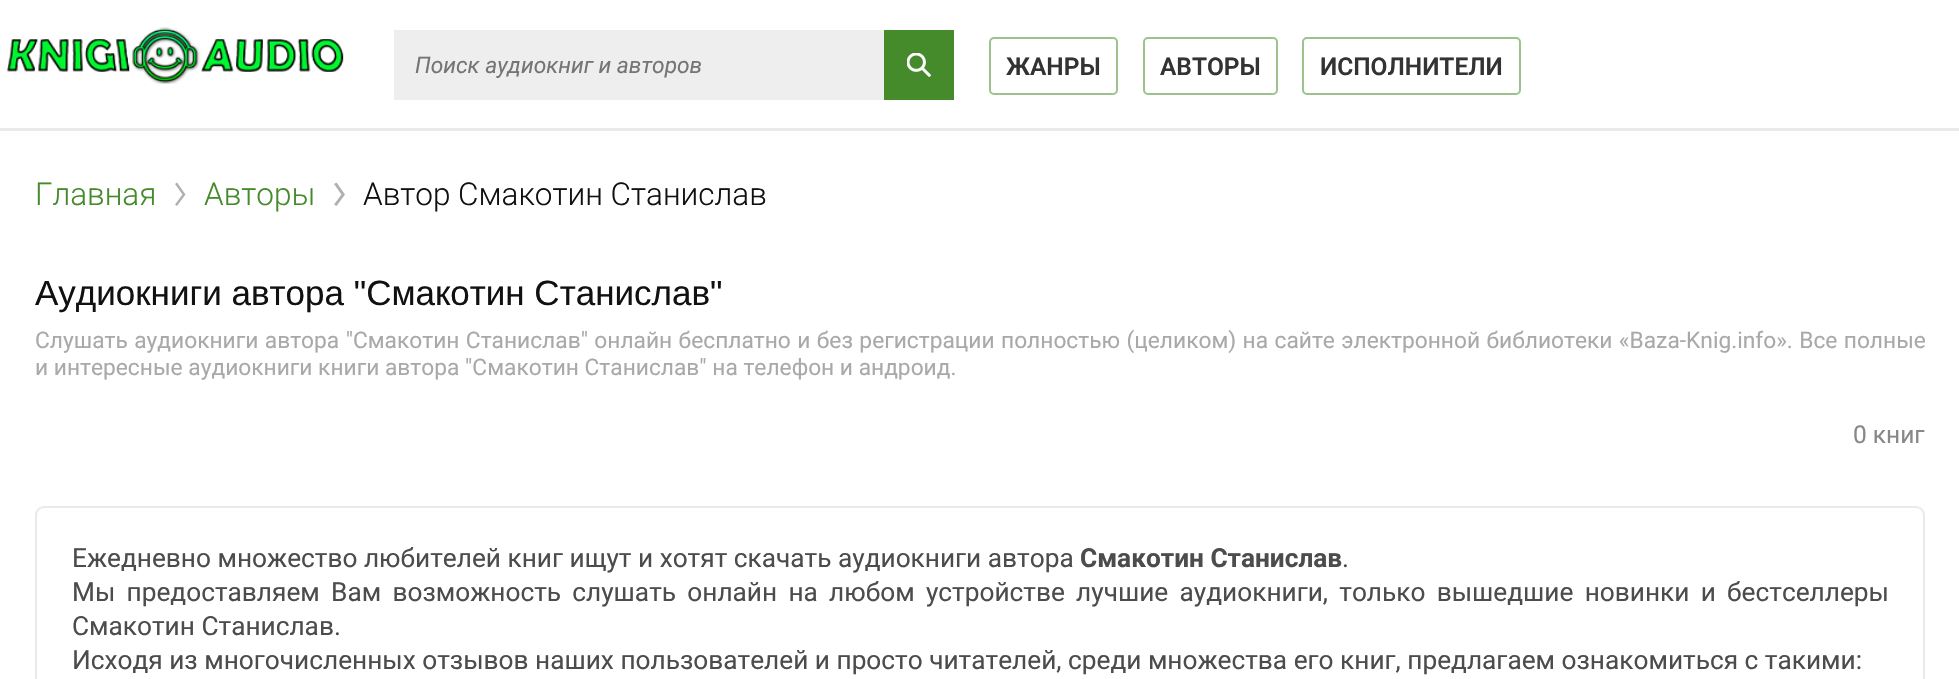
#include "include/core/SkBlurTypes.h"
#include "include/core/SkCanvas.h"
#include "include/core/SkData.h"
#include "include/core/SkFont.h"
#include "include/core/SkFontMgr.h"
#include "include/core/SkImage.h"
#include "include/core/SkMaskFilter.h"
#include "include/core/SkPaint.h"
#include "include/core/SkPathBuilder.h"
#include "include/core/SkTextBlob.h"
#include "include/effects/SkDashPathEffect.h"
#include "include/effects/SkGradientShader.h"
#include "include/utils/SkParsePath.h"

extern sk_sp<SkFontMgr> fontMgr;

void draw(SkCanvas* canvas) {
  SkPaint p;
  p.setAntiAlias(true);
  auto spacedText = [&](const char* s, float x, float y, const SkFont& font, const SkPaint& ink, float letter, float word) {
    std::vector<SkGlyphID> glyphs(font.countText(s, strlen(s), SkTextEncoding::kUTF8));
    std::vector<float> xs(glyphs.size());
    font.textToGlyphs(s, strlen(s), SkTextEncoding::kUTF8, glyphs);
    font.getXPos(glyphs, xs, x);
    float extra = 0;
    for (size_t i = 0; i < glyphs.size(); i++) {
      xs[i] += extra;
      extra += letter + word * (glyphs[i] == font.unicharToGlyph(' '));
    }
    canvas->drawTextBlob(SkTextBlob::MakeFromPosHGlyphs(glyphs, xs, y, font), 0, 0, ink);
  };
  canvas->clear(SK_ColorWHITE);
  p.setColor(SkColorSetRGB(234, 234, 234));
  canvas->drawRect(SkRect::MakeLTRB(0, 128, 1959, 131), p);
  canvas->drawImageRect(SkImages::DeferredFromEncodedData(SkData::MakeFromFileName("images/1.png")), SkRect::MakeLTRB(6, 27, 344, 84), SkSamplingOptions());
  p.setColor(SkColorSetRGB(238, 238, 238));
  canvas->drawRect(SkRect::MakeLTRB(394, 30, 884, 100), p);
  p.setColor(SkColorSetRGB(69, 138, 43));
  canvas->drawRect(SkRect::MakeLTRB(884, 30, 954, 100), p);
  canvas->drawImageRect(SkImages::DeferredFromEncodedData(SkData::MakeFromFileName("images/2.png")), SkRect::MakeLTRB(907, 53, 931, 77), SkSamplingOptions());
  p.setStyle(SkPaint::kStroke_Style);
  p.setStrokeWidth(2);
  p.setColor(SkColorSetRGB(156, 195, 141));
  canvas->drawRoundRect(SkRect::MakeLTRB(990, 38, 1117, 94), 4, 4, p);
  canvas->drawRoundRect(SkRect::MakeLTRB(1144, 38, 1277, 94), 4, 4, p);
  canvas->drawRoundRect(SkRect::MakeLTRB(1303, 38, 1520, 94), 4, 4, p);
  p.setStyle(SkPaint::kFill_Style);
  p.setColor(SkColorSetRGB(176, 176, 176));
  canvas->drawPath(SkPathBuilder(SkPathFillType::kEvenOdd).moveTo(177, 206).lineTo(185.5f, 194.5f).lineTo(177, 182.5f).lineTo(175, 184).lineTo(182.5f, 194.5f).lineTo(175, 204.5f).close().detach(), p);
  canvas->drawPath(SkPathBuilder(SkPathFillType::kEvenOdd).moveTo(336.5f, 206).lineTo(345, 194.5f).lineTo(336.5f, 182.5f).lineTo(334, 184).lineTo(341.5f, 194.5f).lineTo(334, 204.5f).close().detach(), p);
  p.setStyle(SkPaint::kStroke_Style);
  p.setColor(SkColorSetRGB(234, 234, 234));
  canvas->drawRoundRect(SkRect::MakeLTRB(36, 507, 1924, 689), 8, 8, p);
  SkFont font1(fontMgr->matchFamilyStyle("Roboto", SkFontStyle::Italic()), 22.75f);
  font1.setSubpixel(true);
  p.setStyle(SkPaint::kFill_Style);
  p.setColor(SkColorSetRGB(117, 117, 117));
  canvas->drawString("Поиск аудиокниг и авторов", 415, 73, font1, p);
  SkFont font2(fontMgr->matchFamilyStyle("Roboto", SkFontStyle(600, SkFontStyle::kNormal_Width, SkFontStyle::kUpright_Slant)), 24.5f);
  font2.setSubpixel(true);
  p.setColor(SkColorSetRGB(51, 51, 51));
  canvas->drawString("ЖАНРЫ", 1006, 75, font2, p);
  canvas->drawString("АВТОРЫ", 1160, 75, font2, p);
  canvas->drawString("ИСПОЛНИТЕЛИ", 1320, 75, font2, p);
  SkFont font3(fontMgr->matchFamilyStyle("Roboto", SkFontStyle(300, SkFontStyle::kNormal_Width, SkFontStyle::kUpright_Slant)), 31.5f);
  font3.setSubpixel(true);
  p.setColor(SkColorSetRGB(69, 138, 43));
  canvas->drawString("Главная", 35, 205, font3, p);
  canvas->drawString("Авторы", 204, 205, font3, p);
  p.setColor(SkColorSetRGB(17, 17, 17));
  canvas->drawString("Автор Смакотин Станислав", 363, 205, font3, p);
  SkFont font4(fontMgr->matchFamilyStyle("Liberation Sans", SkFontStyle::Normal()), 35);
  font4.setSubpixel(true);
  canvas->drawString("Аудиокниги автора \"Смакотин Станислав\"", 35, 305, font4, p);
  SkFont font5(fontMgr->matchFamilyStyle("Roboto", SkFontStyle::Normal()), 22.75f);
  font5.setSubpixel(true);
  p.setColor(SkColorSetRGB(169, 169, 169));
  spacedText("Слушать аудиокниги автора \"Смакотин Станислав\" онлайн бесплатно и без регистрации полностью (целиком) на сайте электронной библиотеки «Baza-Knig.info». Все полные", 35, 348, font5, p, 0, 0.75f);
  canvas->drawString("и интересные аудиокниги книги автора \"Смакотин Станислав\" на телефон и андроид.", 35, 375, font5, p);
  SkFont font6(fontMgr->matchFamilyStyle("Roboto", SkFontStyle::Normal()), 24.5f);
  font6.setSubpixel(true);
  p.setColor(SkColorSetRGB(136, 136, 136));
  canvas->drawString("0 книг", 1853, 443, font6, p);
  SkFont font7(fontMgr->matchFamilyStyle("Roboto", SkFontStyle::Normal()), 26.25f);
  font7.setSubpixel(true);
  p.setColor(SkColorSetRGB(76, 76, 76));
  canvas->drawString("Ежедневно множество любителей книг ищут и хотят скачать аудиокниги автора", 72, 567, font7, p);
  SkFont font8(fontMgr->matchFamilyStyle("Roboto", SkFontStyle::Bold()), 26.25f);
  font8.setSubpixel(true);
  canvas->drawString("Смакотин Станислав", 1080, 567, font8, p);
  canvas->drawString(".", 1342, 567, font7, p);
  spacedText("Мы предоставляем Вам возможность слушать онлайн на любом устройстве лучшие аудиокниги, только вышедшие новинки и бестселлеры", 72, 601, font7, p, 0, 4.75f);
  canvas->drawString("Смакотин Станислав.", 72, 635, font7, p);
  canvas->drawString("Исходя из многочисленных отзывов наших пользователей и просто читателей, среди множества его книг, предлагаем ознакомиться с такими:", 72, 669, font7, p);
}
